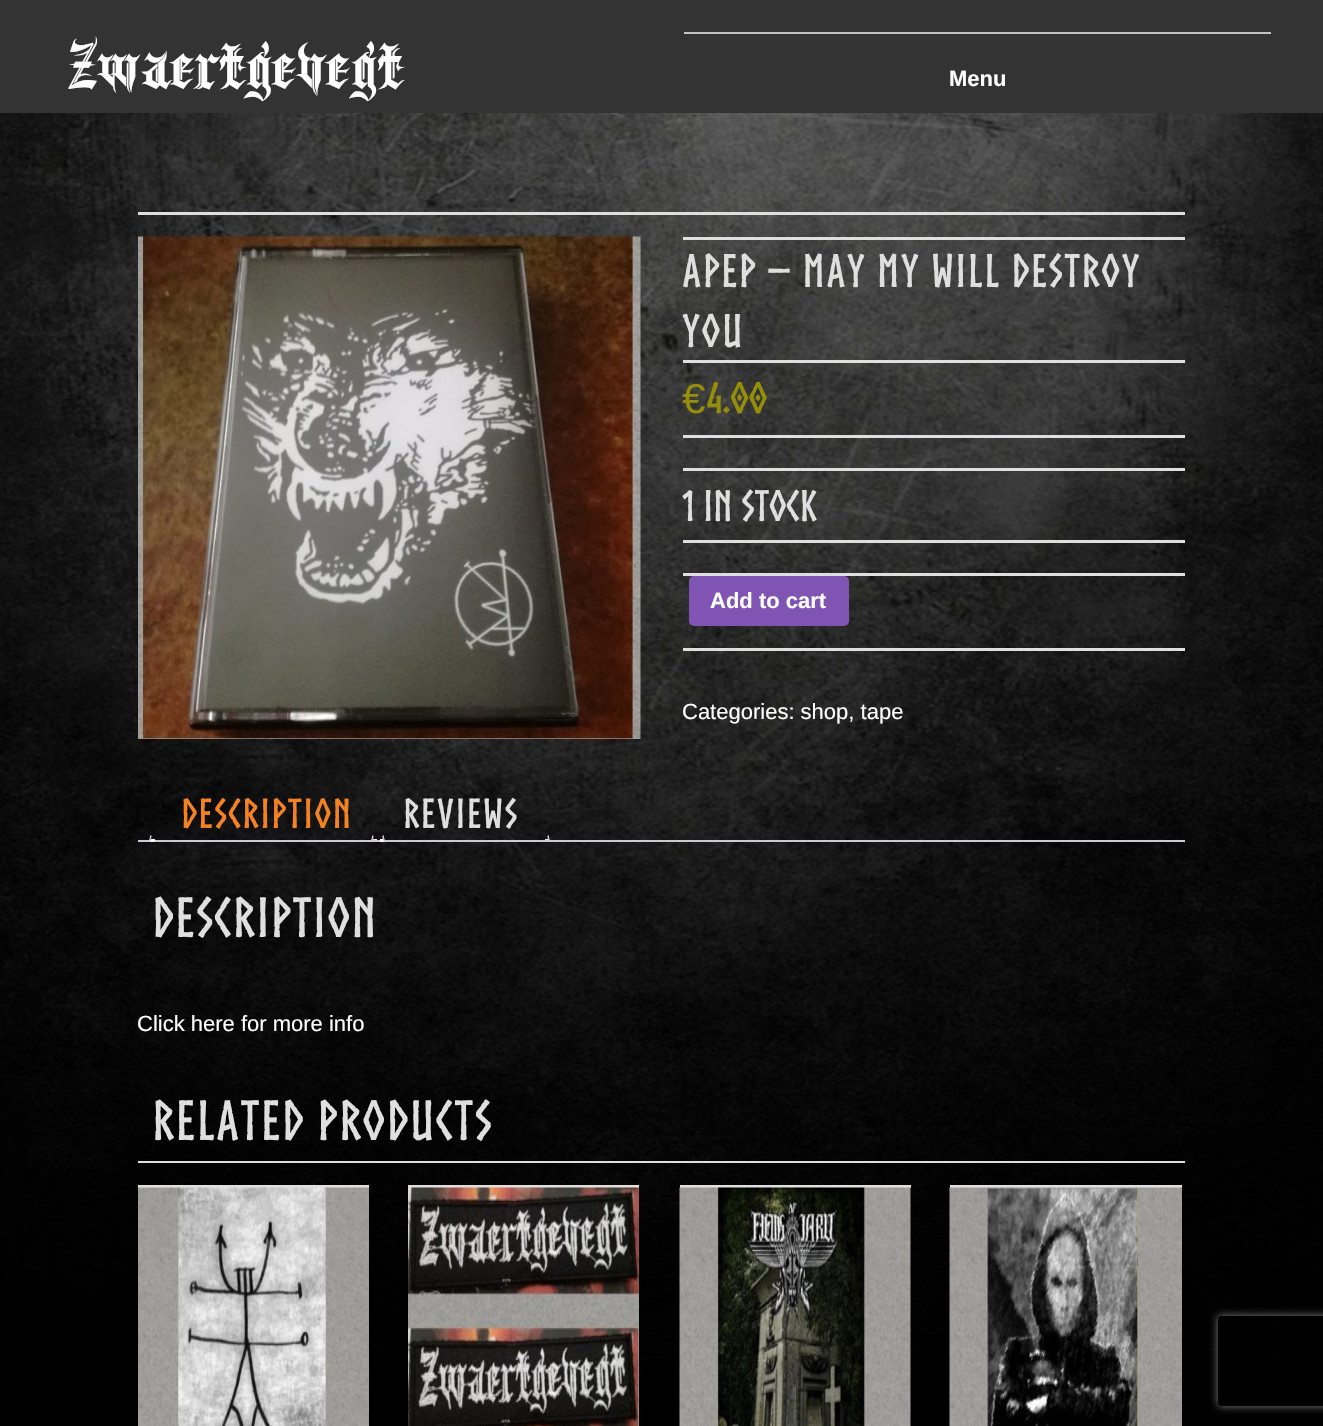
#include "include/core/SkBlurTypes.h"
#include "include/core/SkCanvas.h"
#include "include/core/SkData.h"
#include "include/core/SkFont.h"
#include "include/core/SkFontMgr.h"
#include "include/core/SkImage.h"
#include "include/core/SkMaskFilter.h"
#include "include/core/SkPaint.h"
#include "include/core/SkPathBuilder.h"
#include "include/core/SkTextBlob.h"
#include "include/effects/SkDashPathEffect.h"
#include "include/effects/SkGradientShader.h"
#include "include/utils/SkParsePath.h"

extern sk_sp<SkFontMgr> fontMgr;

void draw(SkCanvas* canvas) {
  SkPaint p;
  p.setAntiAlias(true);
  auto spacedText = [&](const char* s, float x, float y, const SkFont& font, const SkPaint& ink, float letter, float word) {
    std::vector<SkGlyphID> glyphs(font.countText(s, strlen(s), SkTextEncoding::kUTF8));
    std::vector<float> xs(glyphs.size());
    font.textToGlyphs(s, strlen(s), SkTextEncoding::kUTF8, glyphs);
    font.getXPos(glyphs, xs, x);
    float extra = 0;
    for (size_t i = 0; i < glyphs.size(); i++) {
      xs[i] += extra;
      extra += letter + word * (glyphs[i] == font.unicharToGlyph(' '));
    }
    canvas->drawTextBlob(SkTextBlob::MakeFromPosHGlyphs(glyphs, xs, y, font), 0, 0, ink);
  };
  canvas->clear(SK_ColorBLACK);
  canvas->drawImageRect(SkImages::DeferredFromEncodedData(SkData::MakeFromFileName("images/1.png")), SkRect::MakeLTRB(0, 113, 1323, 1359), SkSamplingOptions());
  p.setColor(SkColorSetRGB(51, 51, 51));
  canvas->drawRect(SkRect::MakeLTRB(0, 0, 1323, 113), p);
  p.setColor(SkColorSetRGB(196, 192, 195));
  canvas->drawRect(SkRect::MakeLTRB(684, 32, 1271, 34), p);
  p.setColor(SkColorSetRGB(223, 223, 223));
  canvas->drawRect(SkRect::MakeLTRB(138, 212, 1185, 215), p);
  canvas->drawImageRect(SkImages::DeferredFromEncodedData(SkData::MakeFromFileName("images/2.png")), SkRect::MakeLTRB(138, 236, 641, 739), SkSamplingOptions());
  canvas->drawRect(SkRect::MakeLTRB(683, 237, 1185, 240), p);
  canvas->drawRect(SkRect::MakeLTRB(683, 360, 1185, 363), p);
  canvas->drawRect(SkRect::MakeLTRB(683, 435, 1185, 438), p);
  canvas->drawRect(SkRect::MakeLTRB(683, 468, 1185, 471), p);
  canvas->drawRect(SkRect::MakeLTRB(683, 540, 1185, 543), p);
  canvas->drawRect(SkRect::MakeLTRB(683, 573, 1185, 576), p);
  canvas->drawRect(SkRect::MakeLTRB(683, 648, 1185, 651), p);
  p.setColor(SkColorSetRGB(127, 84, 179));
  canvas->drawRoundRect(SkRect::MakeLTRB(689, 576, 849, 626), 5, 5, p);
  canvas->save();
  canvas->clipRect(SkRect::MakeLTRB(138, 785, 1185, 842));
  p.setColor(SkColorSetRGB(233, 230, 237));
  canvas->drawPath(SkPathBuilder().moveTo(369, 843).lineTo(369, 846).cubicTo(374, 846, 377, 844.5f, 377, 839).lineTo(373, 839).cubicTo(372.5f, 841, 371, 842.5f, 369, 843).close().detach(), p);
  p.setColor(SkColorSetRGB(207, 200, 216));
  canvas->drawPath(SkPathBuilder(SkPathFillType::kEvenOdd).moveTo(366, 835.5f).lineTo(373.5f, 835.5f).cubicTo(373.5f, 841, 371.5f, 843, 366, 843).close().moveTo(366, 835.5f).lineTo(372, 835.5f).cubicTo(372, 840, 370.5f, 841.5f, 366, 841.5f).close().detach(), p);
  p.setColor(SkColorSetRGB(233, 230, 237));
  canvas->drawPath(SkPathBuilder().moveTo(545, 839).cubicTo(545, 843.5f, 547.5f, 846, 552, 846).lineTo(552, 843).cubicTo(550, 842.5f, 548.5f, 841, 548, 839).close().detach(), p);
  p.setColor(SkColorSetRGB(207, 200, 216));
  canvas->drawPath(SkPathBuilder(SkPathFillType::kEvenOdd).moveTo(547.5f, 835.5f).lineTo(555, 835.5f).lineTo(555, 843).cubicTo(551, 843, 547.5f, 841.5f, 547.5f, 837).close().moveTo(549, 835.5f).lineTo(555, 835.5f).lineTo(555, 841.5f).cubicTo(552, 841.5f, 549, 840.5f, 549, 837).close().detach(), p);
  canvas->restore();
  canvas->drawRect(SkRect::MakeLTRB(138, 840, 1185, 842), p);
  canvas->save();
  canvas->clipRect(SkRect::MakeLTRB(138, 785, 1185, 842));
  p.setColor(SK_ColorWHITE);
  canvas->drawPath(SkPathBuilder().moveTo(147, 843).lineTo(147, 846).cubicTo(152, 846, 155, 844.5f, 155, 839).lineTo(151, 839).cubicTo(150.5f, 841, 149, 842.5f, 147, 843).close().detach(), p);
  p.setColor(SkColorSetRGB(207, 200, 216));
  canvas->drawPath(SkPathBuilder(SkPathFillType::kEvenOdd).moveTo(144, 835.5f).lineTo(151.5f, 835.5f).cubicTo(151.5f, 841, 149.5f, 843, 144, 843).close().moveTo(144, 835.5f).lineTo(150, 835.5f).cubicTo(150, 840, 148.5f, 841.5f, 144, 841.5f).close().detach(), p);
  p.setColor(SK_ColorWHITE);
  canvas->drawPath(SkPathBuilder().moveTo(380, 839).cubicTo(380, 843.5f, 382.5f, 846, 387, 846).lineTo(387, 843).cubicTo(385, 842.5f, 383.5f, 841, 383, 839).close().detach(), p);
  p.setColor(SkColorSetRGB(207, 200, 216));
  canvas->drawPath(SkPathBuilder(SkPathFillType::kEvenOdd).moveTo(382.5f, 835.5f).lineTo(390, 835.5f).lineTo(390, 843).cubicTo(386, 843, 382.5f, 841.5f, 382.5f, 837).close().moveTo(384, 835.5f).lineTo(390, 835.5f).lineTo(390, 841.5f).cubicTo(387, 841.5f, 384, 840.5f, 384, 837).close().detach(), p);
  canvas->restore();
  p.setColor(SkColorSetRGB(223, 223, 223));
  canvas->drawRect(SkRect::MakeLTRB(138, 1161, 1185, 1163), p);
  canvas->drawRect(SkRect::MakeLTRB(138, 1185, 369, 1188), p);
  canvas->drawImageRect(SkImages::DeferredFromEncodedData(SkData::MakeFromFileName("images/3.png")), SkRect::MakeLTRB(138, 1187, 369, 1426), SkSamplingOptions());
  canvas->drawRect(SkRect::MakeLTRB(408, 1185, 639, 1188), p);
  canvas->drawImageRect(SkImages::DeferredFromEncodedData(SkData::MakeFromFileName("images/4.png")), SkRect::MakeLTRB(408, 1187, 639, 1426), SkSamplingOptions());
  canvas->drawRect(SkRect::MakeLTRB(680, 1185, 911, 1188), p);
  canvas->drawImageRect(SkImages::DeferredFromEncodedData(SkData::MakeFromFileName("images/5.png")), SkRect::MakeLTRB(679, 1187, 911, 1426), SkSamplingOptions());
  canvas->drawRect(SkRect::MakeLTRB(950, 1185, 1182, 1188), p);
  canvas->drawImageRect(SkImages::DeferredFromEncodedData(SkData::MakeFromFileName("images/6.png")), SkRect::MakeLTRB(949, 1187, 1182, 1426), SkSamplingOptions());
  canvas->save();
  canvas->clipPath(SkPathBuilder(SkPathFillType::kEvenOdd).moveTo(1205, 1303).lineTo(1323, 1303).lineTo(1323, 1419).lineTo(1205, 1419).close().moveTo(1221, 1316).lineTo(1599, 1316).cubicTo(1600.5f, 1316, 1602, 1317.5f, 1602, 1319).lineTo(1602, 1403).cubicTo(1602, 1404.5f, 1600.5f, 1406, 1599, 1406).lineTo(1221, 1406).cubicTo(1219.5f, 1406, 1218, 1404.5f, 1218, 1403).lineTo(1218, 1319).cubicTo(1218, 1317.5f, 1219.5f, 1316, 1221, 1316).close().detach(), true);
  p.setColor(SkColorSetRGB(128, 128, 128));
  p.setMaskFilter(SkMaskFilter::MakeBlur(kNormal_SkBlurStyle, 4));
  canvas->drawRoundRect(SkRect::MakeLTRB(1218, 1316, 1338, 1406), 3, 3, p);
  p.setMaskFilter(nullptr);
  canvas->restore();
  SkFont font1(fontMgr->matchFamilyStyle("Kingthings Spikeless", SkFontStyle(100, SkFontStyle::kNormal_Width, SkFontStyle::kUpright_Slant)), 60);
  font1.setSubpixel(true);
  p.setColor(SK_ColorWHITE);
  spacedText("Zwaertgevegt", 67, 89, font1, p, 1.5f, 0);
  SkFont font2(fontMgr->matchFamilyStyle("Liberation Sans", SkFontStyle::Bold()), 22);
  font2.setSubpixel(true);
  canvas->drawString("Menu", 949, 86, font2, p);
  SkFont font3(fontMgr->matchFamilyStyle("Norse", SkFontStyle::Bold()), 45);
  font3.setSubpixel(true);
  p.setColor(SkColorSetRGB(223, 223, 223));
  spacedText("APEP – MAY MY WILL DESTROY", 682, 287, font3, p, 1.5f, 0);
  spacedText("YOU", 682, 347, font3, p, 1.5f, 0);
  SkFont font4(fontMgr->matchFamilyStyle("Liberation Sans", SkFontStyle::Normal()), 42);
  font4.setSubpixel(true);
  p.setColor(SkColorSetRGB(149, 142, 9));
  canvas->drawString("€", 682, 413, font4, p);
  SkFont font5(fontMgr->matchFamilyStyle("Norse", SkFontStyle::Bold()), 42);
  font5.setSubpixel(true);
  canvas->drawString("4.00", 706, 413, font5, p);
  p.setColor(SkColorSetRGB(223, 223, 223));
  canvas->drawString("1 in stock", 682, 521, font5, p);
  p.setColor(SK_ColorWHITE);
  canvas->drawString("Add to cart", 710, 608, font2, p);
  SkFont font6(fontMgr->matchFamilyStyle("Liberation Sans", SkFontStyle::Normal()), 22);
  font6.setSubpixel(true);
  canvas->drawString("Categories: shop, tape", 682, 719, font6, p);
  SkFont font7(fontMgr->matchFamilyStyle("Norse", SkFontStyle::Bold()), 40);
  font7.setSubpixel(true);
  p.setColor(SkColorSetRGB(245, 130, 32));
  spacedText("Description", 181, 828, font7, p, 1.5f, 0);
  p.setColor(SkColorSetRGB(223, 223, 223));
  spacedText("Reviews", 403, 828, font7, p, 1.5f, 0);
  SkFont font8(fontMgr->matchFamilyStyle("Norse", SkFontStyle::Bold()), 54);
  font8.setSubpixel(true);
  spacedText("DESCRIPTION", 152, 937, font8, p, 1.5f, 0);
  p.setColor(SK_ColorWHITE);
  canvas->drawString("Click here for more info", 137, 1031, font6, p);
  p.setColor(SkColorSetRGB(223, 223, 223));
  spacedText("RELATED PRODUCTS", 152, 1140, font8, p, 1.5f, 0);
}
